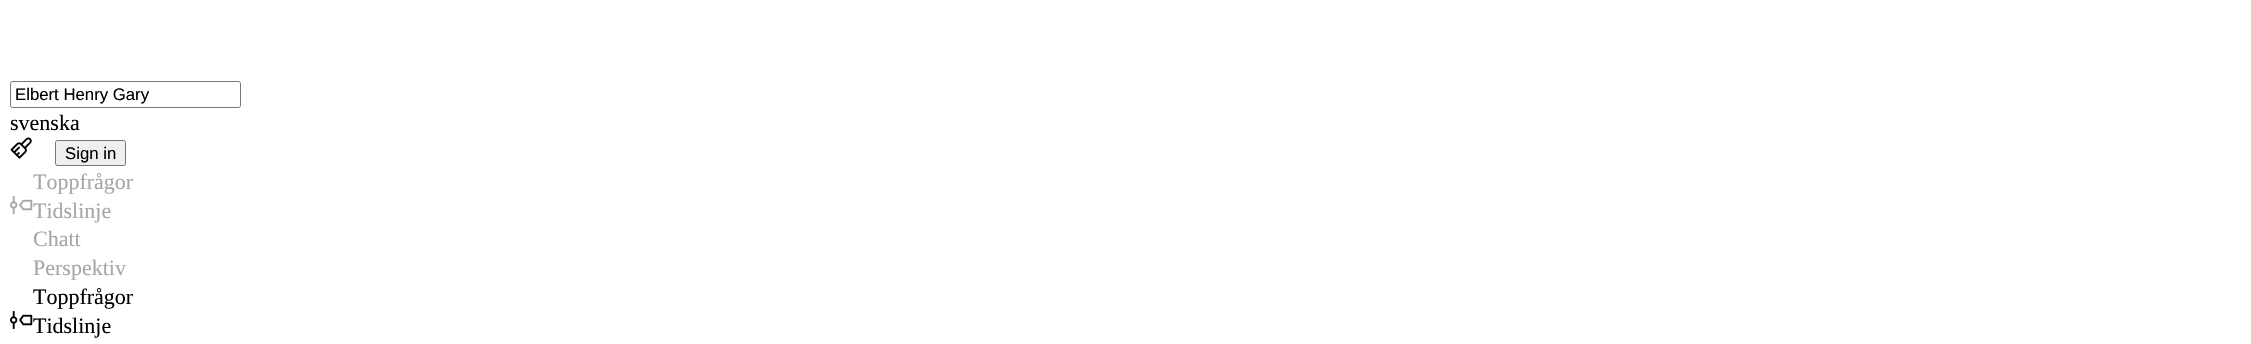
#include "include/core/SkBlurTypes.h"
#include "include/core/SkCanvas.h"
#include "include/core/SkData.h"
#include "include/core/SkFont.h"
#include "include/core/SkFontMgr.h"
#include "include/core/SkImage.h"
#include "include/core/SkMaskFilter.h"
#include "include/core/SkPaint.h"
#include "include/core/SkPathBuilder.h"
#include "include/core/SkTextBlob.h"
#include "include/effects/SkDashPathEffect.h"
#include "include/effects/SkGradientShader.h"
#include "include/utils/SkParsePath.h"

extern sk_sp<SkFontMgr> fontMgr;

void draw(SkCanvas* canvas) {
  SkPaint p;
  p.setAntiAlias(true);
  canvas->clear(SK_ColorWHITE);
  p.setStyle(SkPaint::kStroke_Style);
  p.setStrokeWidth(1);
  p.setColor(SkColorSetRGB(118, 118, 118));
  canvas->drawRoundRect(SkRect::MakeLTRB(10.5f, 81.5f, 240.5f, 107.5f), 2, 2, p);
  canvas->drawImageRect(SkImages::DeferredFromEncodedData(SkData::MakeFromFileName("images/1.png")), SkRect::MakeLTRB(10, 137, 32, 159), SkSamplingOptions());
  p.setStyle(SkPaint::kFill_Style);
  p.setColor(SkColorSetRGB(239, 239, 239));
  canvas->drawRoundRect(SkRect::MakeLTRB(55.5f, 140.5f, 125.5f, 165.5f), 2, 2, p);
  p.setStyle(SkPaint::kStroke_Style);
  p.setColor(SkColorSetRGB(118, 118, 118));
  canvas->drawRoundRect(SkRect::MakeLTRB(55.5f, 140.5f, 125.5f, 165.5f), 2, 2, p);
  SkFont font1(fontMgr->matchFamilyStyle("Liberation Sans", SkFontStyle::Normal()), 16.75f);
  font1.setSubpixel(true);
  p.setStyle(SkPaint::kFill_Style);
  p.setColor(SK_ColorBLACK);
  canvas->drawString("Elbert Henry Gary", 15, 100, font1, p);
  SkFont font2(fontMgr->matchFamilyStyle("Liberation Serif", SkFontStyle::Normal()), 22);
  font2.setSubpixel(true);
  canvas->drawString("svenska", 10, 130, font2, p);
  canvas->drawString("Sign in", 65, 159, font1, p);
  p.setColor(SkColorSetRGB(166, 166, 166));
  canvas->drawString("Toppfrågor", 33, 189, font2, p);
  canvas->drawString("Tidslinje", 33, 218, font2, p);
  canvas->drawImageRect(SkImages::DeferredFromEncodedData(SkData::MakeFromFileName("images/2.png")), SkRect::MakeLTRB(10, 196, 33, 215), SkSamplingOptions());
  canvas->drawString("Chatt", 33, 246, font2, p);
  canvas->drawString("Perspektiv", 33, 275, font2, p);
  p.setColor(SK_ColorBLACK);
  canvas->drawString("Toppfrågor", 33, 304, font2, p);
  canvas->drawString("Tidslinje", 33, 333, font2, p);
  canvas->drawImageRect(SkImages::DeferredFromEncodedData(SkData::MakeFromFileName("images/3.png")), SkRect::MakeLTRB(10, 310, 33, 330), SkSamplingOptions());
}
